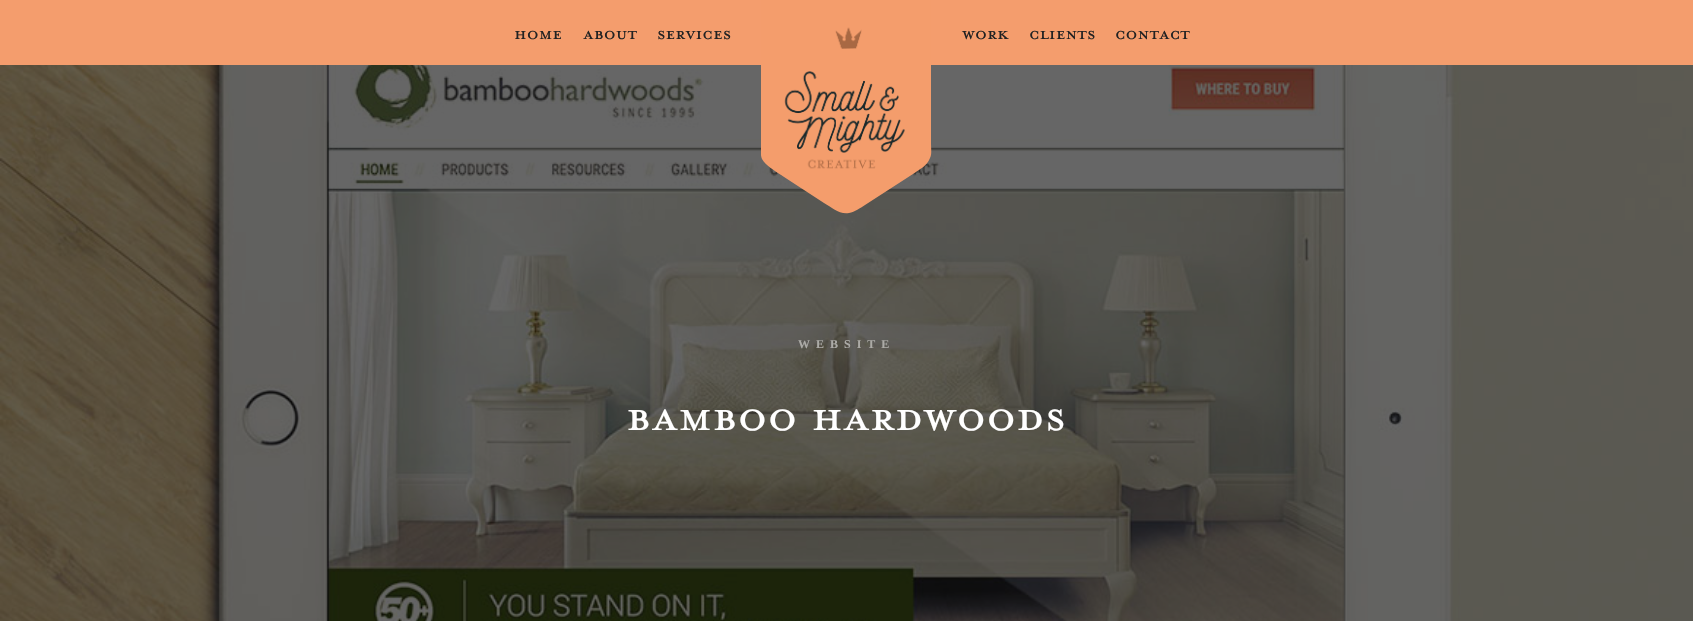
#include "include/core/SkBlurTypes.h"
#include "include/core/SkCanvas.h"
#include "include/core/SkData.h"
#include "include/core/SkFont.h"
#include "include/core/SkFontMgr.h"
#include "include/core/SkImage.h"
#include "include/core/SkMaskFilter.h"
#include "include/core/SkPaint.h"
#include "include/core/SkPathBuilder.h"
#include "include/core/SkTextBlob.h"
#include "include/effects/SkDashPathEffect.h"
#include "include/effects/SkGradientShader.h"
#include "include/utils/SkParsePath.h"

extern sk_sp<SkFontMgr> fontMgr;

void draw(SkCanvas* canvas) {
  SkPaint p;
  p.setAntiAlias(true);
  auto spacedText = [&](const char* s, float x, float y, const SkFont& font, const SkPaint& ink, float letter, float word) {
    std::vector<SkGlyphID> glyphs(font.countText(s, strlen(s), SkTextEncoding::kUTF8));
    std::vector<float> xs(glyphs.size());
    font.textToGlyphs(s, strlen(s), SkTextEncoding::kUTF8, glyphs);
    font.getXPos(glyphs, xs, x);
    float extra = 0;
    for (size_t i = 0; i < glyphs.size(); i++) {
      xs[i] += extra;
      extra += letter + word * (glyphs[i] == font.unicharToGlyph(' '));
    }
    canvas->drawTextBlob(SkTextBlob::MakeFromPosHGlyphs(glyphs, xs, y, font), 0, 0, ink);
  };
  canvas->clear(SK_ColorWHITE);
  p.setColor(SkColorSetRGB(244, 157, 109));
  canvas->drawRect(SkRect::MakeLTRB(0, 0, 1693, 65), p);
  canvas->drawImageRect(SkImages::DeferredFromEncodedData(SkData::MakeFromFileName("images/2.png")), SkRect::MakeLTRB(0, 65, 1693, 621), SkSamplingOptions());
  canvas->save();
  canvas->clipRect(SkRect::MakeLTRB(761, 0, 932, 215));
  p.setColor(SkColorSetRGB(244, 157, 108));
  canvas->drawPath(SkPathBuilder().moveTo(761, 77).lineTo(761, 144).cubicTo(761, 149, 760, 154, 762, 159).cubicTo(766, 166, 774, 170, 781, 175).lineTo(824, 203).cubicTo(831, 207, 840, 215, 849, 213).cubicTo(855, 212, 860, 208, 865, 205).lineTo(913, 174).cubicTo(920, 169, 927, 166, 930, 158).cubicTo(932, 154, 931, 149, 931, 144).lineTo(931, 0).lineTo(761, 0).close().detach(), p);
  canvas->restore();
  canvas->drawImageRect(SkImages::DeferredFromEncodedData(SkData::MakeFromFileName("images/1.png")), SkRect::MakeLTRB(784, 27, 905, 169), SkSamplingOptions());
  SkFont font1(fontMgr->matchFamilyStyle("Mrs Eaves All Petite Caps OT", SkFontStyle::Normal()), 24);
  font1.setSubpixel(true);
  p.setColor(SkColorSetRGB(34, 34, 34));
  canvas->drawString("HOME", 514, 39, font1, p);
  canvas->drawString("ABOUT", 583, 39, font1, p);
  canvas->drawString("SERVICES", 657, 39, font1, p);
  canvas->drawString("WORK", 962, 39, font1, p);
  canvas->drawString("CLIENTS", 1029, 39, font1, p);
  canvas->drawString("CONTACT", 1115, 39, font1, p);
  SkFont font2(fontMgr->matchFamilyStyle("Liberation Serif", SkFontStyle::Bold()), 12);
  font2.setSubpixel(true);
  p.setColor(SkColorSetRGB(172, 171, 167));
  spacedText("WEBSITE", 798, 348, font2, p, 6, 0);
  SkFont font3(fontMgr->matchFamilyStyle("Mrs Eaves All Petite Caps OT", SkFontStyle::Normal()), 60);
  font3.setSubpixel(true);
  p.setColor(SK_ColorWHITE);
  canvas->drawString("BAMBOO HARDWOODS", 626, 430, font3, p);
}
